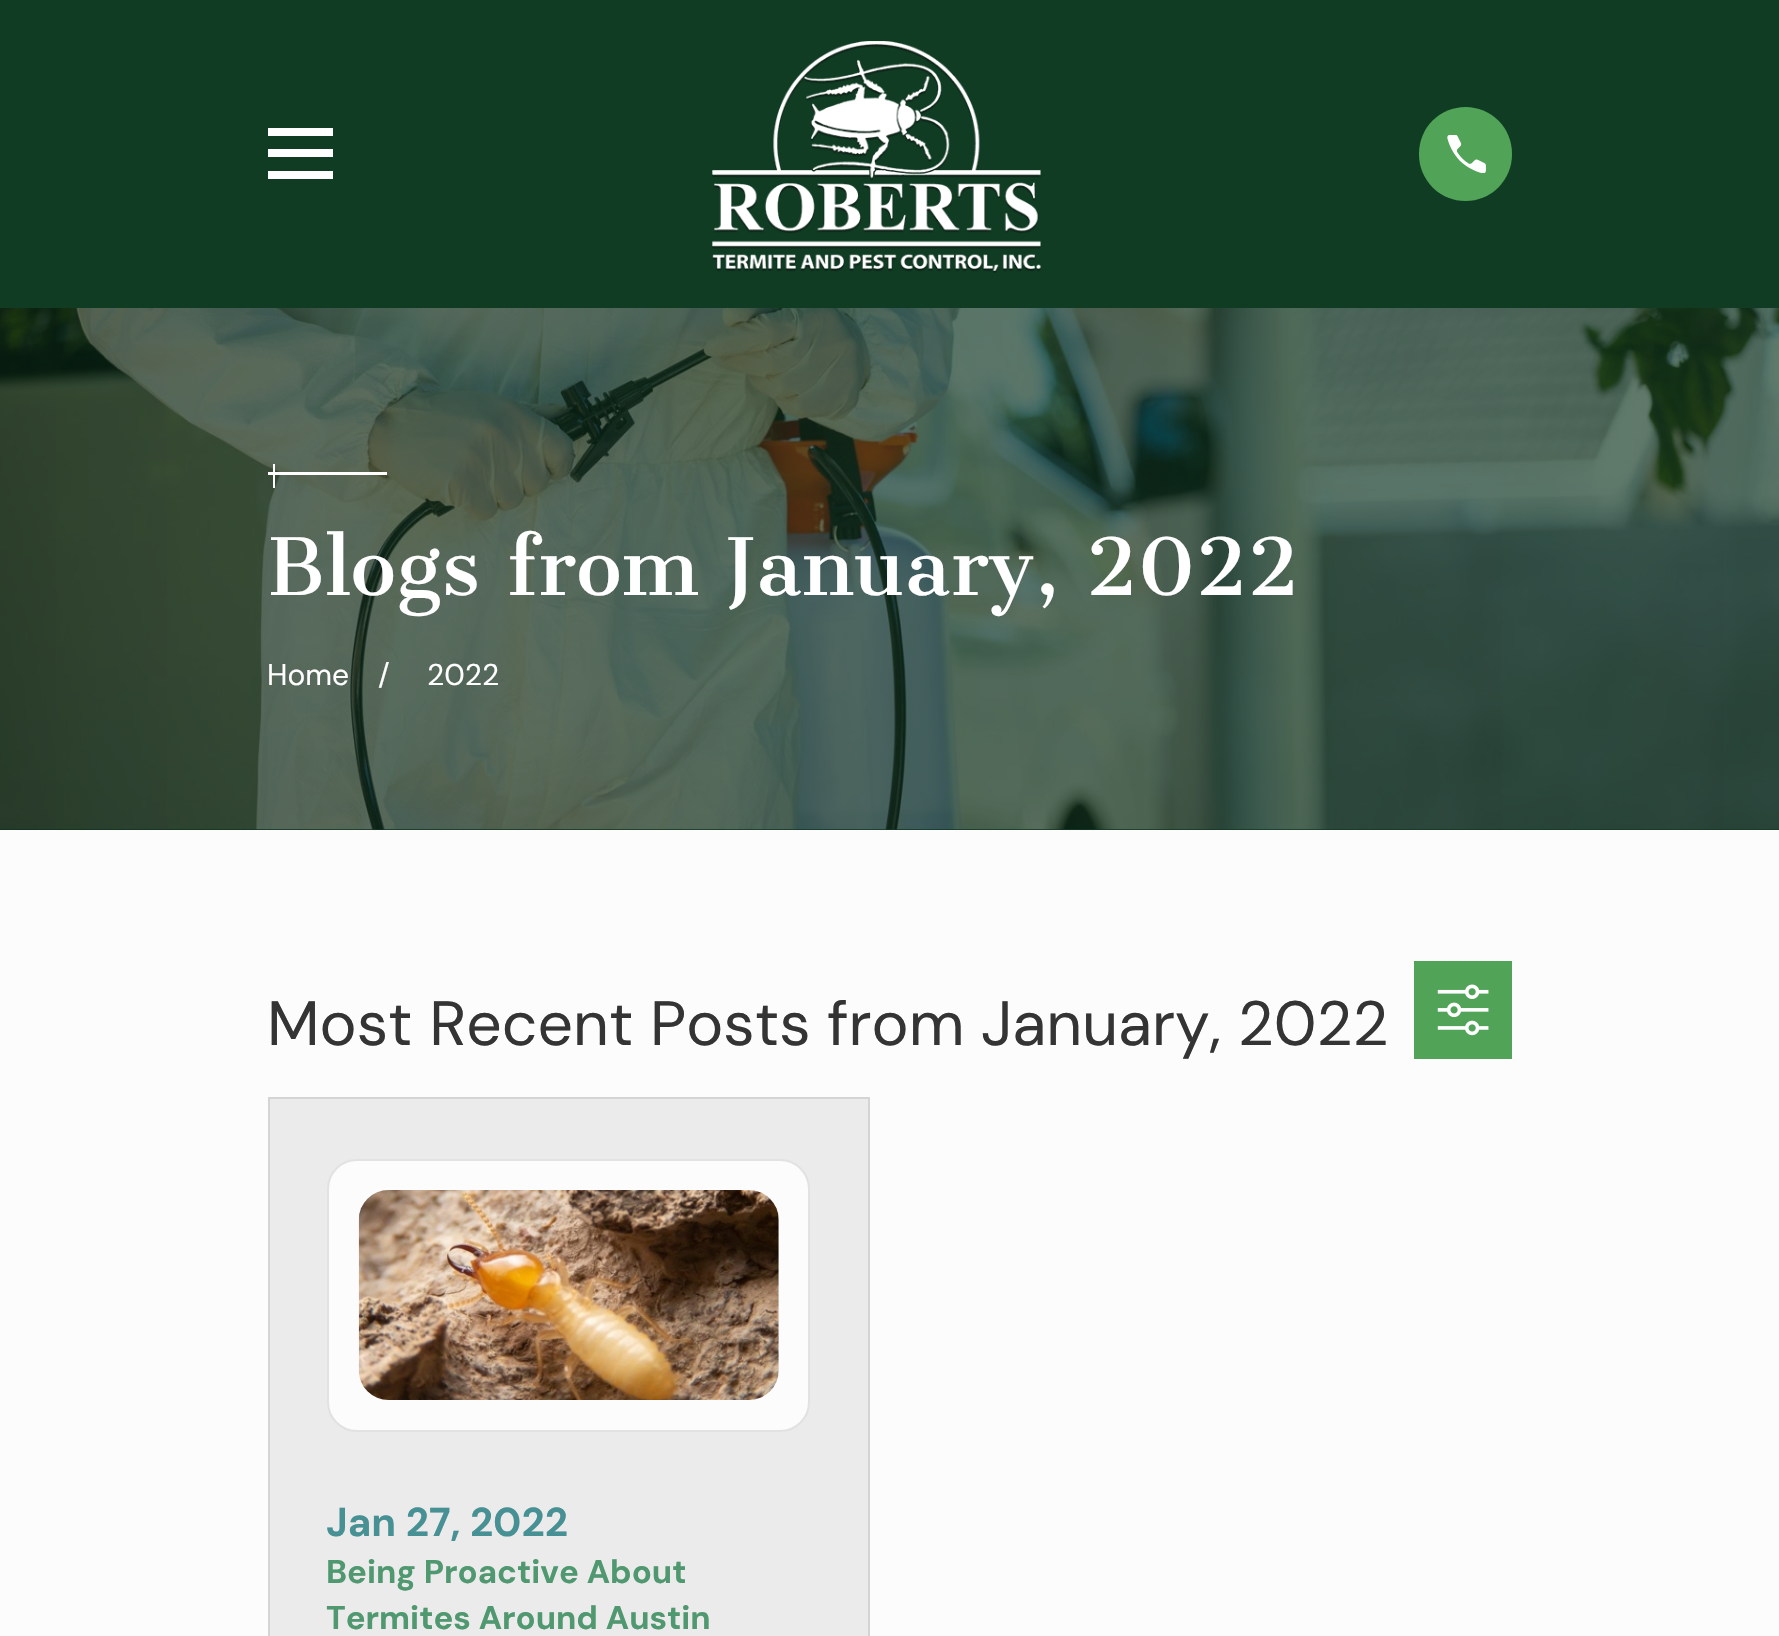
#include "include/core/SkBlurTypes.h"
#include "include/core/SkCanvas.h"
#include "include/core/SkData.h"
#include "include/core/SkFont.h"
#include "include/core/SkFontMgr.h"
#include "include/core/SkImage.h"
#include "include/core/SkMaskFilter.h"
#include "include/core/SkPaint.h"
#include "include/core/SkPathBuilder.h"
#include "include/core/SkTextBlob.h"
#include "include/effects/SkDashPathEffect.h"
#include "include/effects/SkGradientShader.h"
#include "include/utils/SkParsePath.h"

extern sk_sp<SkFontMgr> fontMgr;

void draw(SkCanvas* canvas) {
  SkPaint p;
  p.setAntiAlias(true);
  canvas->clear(SkColorSetRGB(252, 252, 252));
  p.setColor(SkColorSetRGB(16, 60, 35));
  canvas->drawRect(SkRect::MakeLTRB(0, 0, 1779, 308), p);
  p.setColor(SK_ColorWHITE);
  canvas->drawPath(SkPathBuilder().moveTo(268, 128).lineTo(268, 136).lineTo(333, 136).lineTo(333, 128).close().moveTo(268, 149).lineTo(268, 157).lineTo(333, 157).lineTo(333, 149).close().moveTo(268, 171).lineTo(268, 179).lineTo(333, 179).lineTo(333, 171).close().detach(), p);
  canvas->drawImageRect(SkImages::DeferredFromEncodedData(SkData::MakeFromFileName("images/1.png")), SkRect::MakeLTRB(712, 41, 1041, 273), SkSamplingOptions());
  p.setColor(SkColorSetRGB(80, 163, 87));
  canvas->drawRoundRect(SkRect::MakeLTRB(1419, 107, 1512, 201), 46.5f, 46.5f, p);
  canvas->drawImageRect(SkImages::DeferredFromEncodedData(SkData::MakeFromFileName("images/2.png")), SkRect::MakeLTRB(1447, 135, 1486, 173), SkSamplingOptions());
  p.setColor(SkColorSetRGB(16, 60, 35));
  canvas->drawRect(SkRect::MakeLTRB(0, 829, 1779, 830), p);
  canvas->drawImageRect(SkImages::DeferredFromEncodedData(SkData::MakeFromFileName("images/3.png")), SkRect::MakeLTRB(0, 308, 1779, 830), SkSamplingOptions());
  {
    const SkColor colors[] = {SkColorSetARGB(153, 10, 44, 25), SkColorSetARGB(153, 16, 60, 35)};
    const float stops[] = {0, 1};
    const SkPoint ends[] = {{0, 569}, {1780, 569}};
    p.setShader(SkGradientShader::MakeLinear(ends, colors, stops, 2, SkTileMode::kClamp));
    p.setAlpha(255);
  }
  canvas->drawRect(SkRect::MakeLTRB(0, 308, 1779, 830), p);
  p.setShader(nullptr);
  p.setColor(SK_ColorWHITE);
  canvas->drawRect(SkRect::MakeLTRB(268, 472, 387, 475), p);
  canvas->drawRect(SkRect::MakeLTRB(273, 464, 275, 488), p);
  p.setColor(SkColorSetRGB(80, 163, 87));
  canvas->drawRect(SkRect::MakeLTRB(1414, 961, 1512, 1059), p);
  canvas->drawImageRect(SkImages::DeferredFromEncodedData(SkData::MakeFromFileName("images/4.png")), SkRect::MakeLTRB(1437, 984, 1489, 1036), SkSamplingOptions());
  p.setColor(SkColorSetRGB(235, 235, 235));
  canvas->drawRect(SkRect::MakeLTRB(269, 1098, 869, 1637), p);
  p.setStyle(SkPaint::kStroke_Style);
  p.setStrokeWidth(2);
  p.setColor(SkColorSetRGB(212, 212, 212));
  canvas->drawRect(SkRect::MakeLTRB(269, 1098, 869, 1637), p);
  p.setStyle(SkPaint::kFill_Style);
  p.setColor(SkColorSetRGB(252, 252, 252));
  canvas->drawRoundRect(SkRect::MakeLTRB(327, 1159, 810, 1432), 30, 30, p);
  p.setStyle(SkPaint::kStroke_Style);
  p.setColor(SkColorSetARGB(26, 0, 0, 0));
  canvas->drawRoundRect(SkRect::MakeLTRB(328, 1160, 809, 1431), 29, 29, p);
  canvas->drawImageRect(SkImages::DeferredFromEncodedData(SkData::MakeFromFileName("images/5.png")), SkRect::MakeLTRB(358, 1190, 779, 1400), SkSamplingOptions());
  SkFont font1(fontMgr->matchFamilyStyle("Cantata One", SkFontStyle::Normal()), 77.4f);
  font1.setSubpixel(true);
  p.setStyle(SkPaint::kFill_Style);
  p.setColor(SK_ColorWHITE);
  canvas->drawString("Blogs from January, 2022", 267, 595, font1, p);
  SkFont font2(fontMgr->matchFamilyStyle("DM Sans", SkFontStyle::Normal()), 30);
  font2.setSubpixel(true);
  canvas->drawString("Home", 267, 685, font2, p);
  canvas->drawString("/", 378, 685, font2, p);
  canvas->drawString("2022", 427, 685, font2, p);
  SkFont font3(fontMgr->matchFamilyStyle("DM Sans", SkFontStyle::Normal()), 62.5f);
  font3.setSubpixel(true);
  p.setColor(SkColorSetRGB(52, 52, 52));
  canvas->drawString("Most Recent Posts from January, 2022", 267, 1045, font3, p);
  SkFont font4(fontMgr->matchFamilyStyle("DM Sans", SkFontStyle::Bold()), 40.25f);
  font4.setSubpixel(true);
  p.setColor(SkColorSetRGB(71, 144, 148));
  canvas->drawString("Jan 27, 2022", 326, 1536, font4, p);
  SkFont font5(fontMgr->matchFamilyStyle("DM Sans", SkFontStyle::Bold()), 33);
  font5.setSubpixel(true);
  p.setColor(SkColorSetRGB(80, 152, 112));
  canvas->drawString("Being Proactive About", 326, 1583, font5, p);
  canvas->drawString("Termites Around Austin", 326, 1629, font5, p);
}
